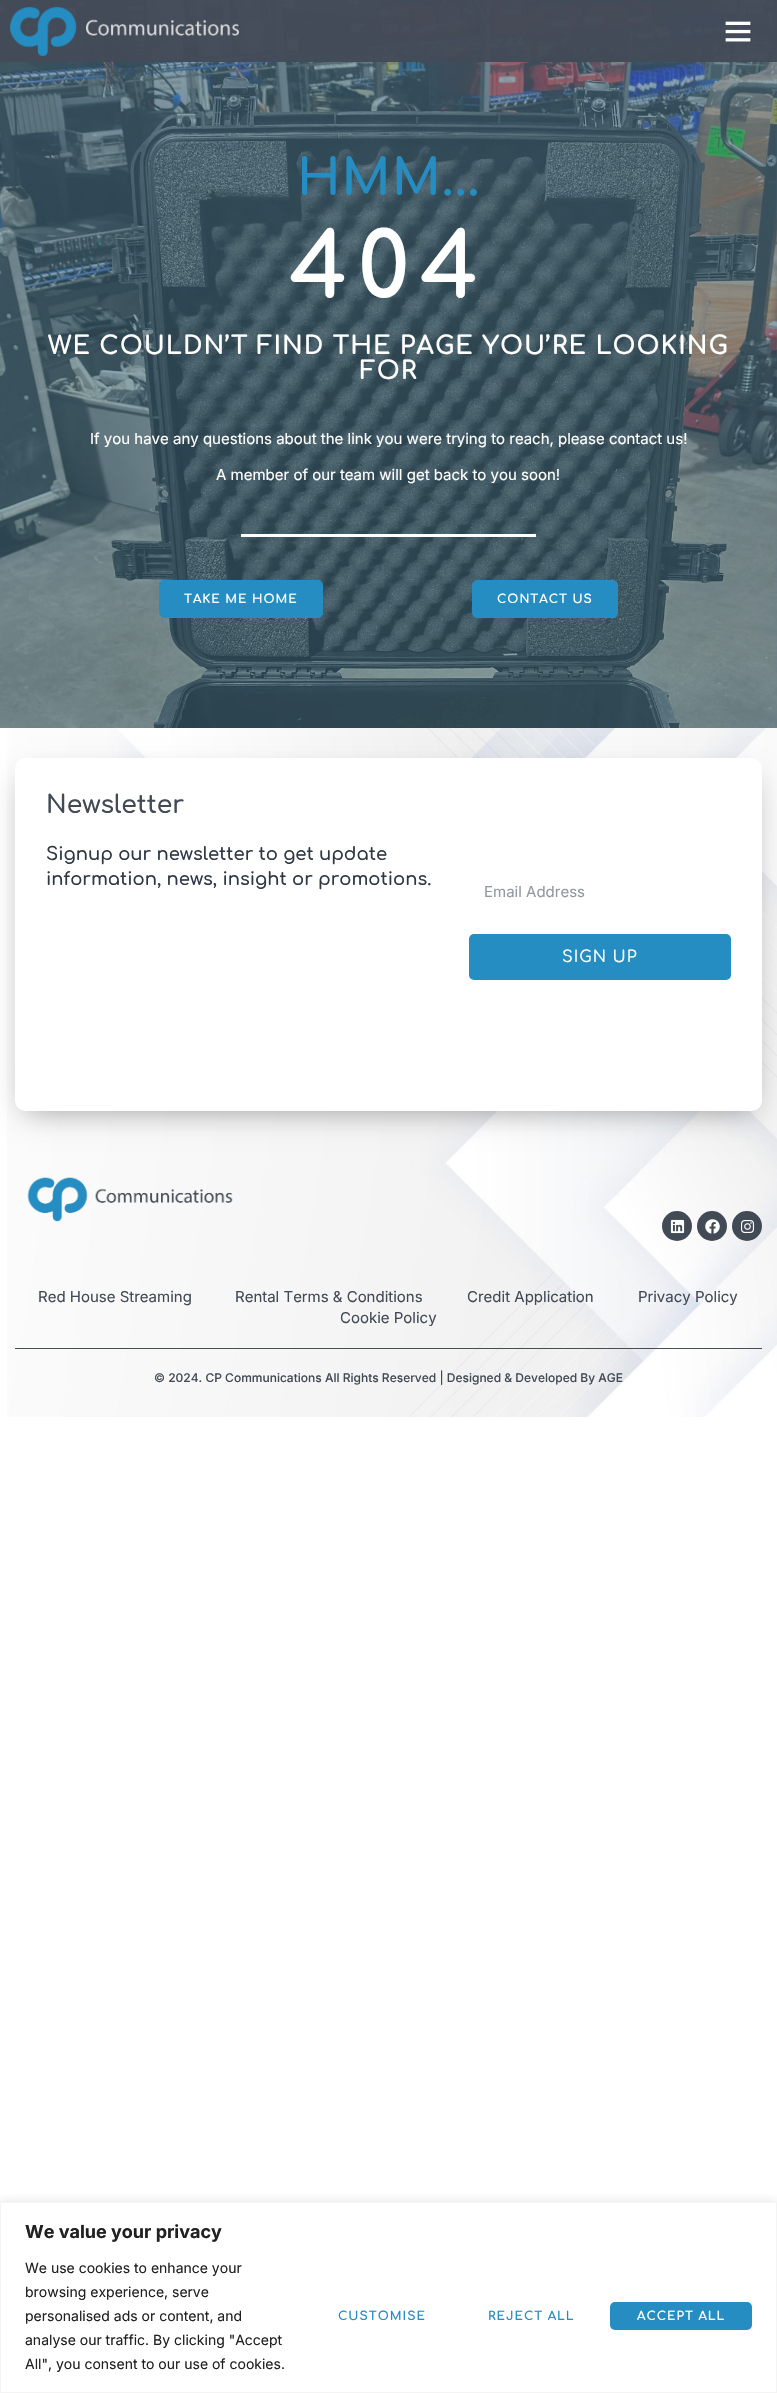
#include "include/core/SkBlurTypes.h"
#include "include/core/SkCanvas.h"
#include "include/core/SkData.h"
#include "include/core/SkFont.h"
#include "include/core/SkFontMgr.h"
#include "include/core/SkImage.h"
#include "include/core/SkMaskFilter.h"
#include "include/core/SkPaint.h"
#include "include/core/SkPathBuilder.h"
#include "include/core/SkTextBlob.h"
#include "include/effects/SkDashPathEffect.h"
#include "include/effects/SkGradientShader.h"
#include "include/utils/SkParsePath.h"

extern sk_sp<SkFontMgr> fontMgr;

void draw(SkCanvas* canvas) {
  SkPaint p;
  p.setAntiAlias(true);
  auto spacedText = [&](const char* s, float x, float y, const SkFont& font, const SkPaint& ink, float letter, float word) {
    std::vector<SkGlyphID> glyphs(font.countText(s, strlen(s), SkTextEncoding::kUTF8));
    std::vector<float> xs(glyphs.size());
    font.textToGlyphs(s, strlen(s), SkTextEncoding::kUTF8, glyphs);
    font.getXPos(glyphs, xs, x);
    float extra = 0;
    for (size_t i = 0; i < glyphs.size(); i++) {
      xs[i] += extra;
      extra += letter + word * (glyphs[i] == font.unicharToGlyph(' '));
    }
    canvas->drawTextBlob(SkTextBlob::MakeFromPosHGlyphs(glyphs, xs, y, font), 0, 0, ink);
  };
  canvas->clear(SK_ColorWHITE);
  p.setColor(SkColorSetRGB(87, 122, 140));
  canvas->drawRect(SkRect::MakeLTRB(0, 0, 777, 728), p);
  canvas->drawImageRect(SkImages::DeferredFromEncodedData(SkData::MakeFromFileName("images/3.png")), SkRect::MakeLTRB(0, 0, 777, 728), SkSamplingOptions());
  p.setColor(SkColorSetARGB(242, 66, 74, 86));
  canvas->drawRect(SkRect::MakeLTRB(0, 0, 777, 62), p);
  canvas->drawImageRect(SkImages::DeferredFromEncodedData(SkData::MakeFromFileName("images/1.png")), SkRect::MakeLTRB(10, 7, 239, 56), SkSamplingOptions());
  canvas->drawImageRect(SkImages::DeferredFromEncodedData(SkData::MakeFromFileName("images/2.png")), SkRect::MakeLTRB(725, 21, 751, 42), SkSamplingOptions());
  p.setColor(SK_ColorWHITE);
  canvas->drawRect(SkRect::MakeLTRB(241, 534, 536, 537), p);
  p.setColor(SkColorSetRGB(37, 141, 193));
  canvas->drawRoundRect(SkRect::MakeLTRB(159.5f, 580.5f, 322.5f, 617.5f), 4.5f, 4.5f, p);
  p.setStyle(SkPaint::kStroke_Style);
  p.setStrokeWidth(1);
  canvas->drawRoundRect(SkRect::MakeLTRB(159.5f, 580.5f, 322.5f, 617.5f), 4.5f, 4.5f, p);
  p.setStyle(SkPaint::kFill_Style);
  canvas->drawRoundRect(SkRect::MakeLTRB(472.5f, 580.5f, 617.5f, 617.5f), 4.5f, 4.5f, p);
  p.setStyle(SkPaint::kStroke_Style);
  canvas->drawRoundRect(SkRect::MakeLTRB(472.5f, 580.5f, 617.5f, 617.5f), 4.5f, 4.5f, p);
  canvas->drawImageRect(SkImages::DeferredFromEncodedData(SkData::MakeFromFileName("images/4.png")), SkRect::MakeLTRB(7, 728, 777, 1417), SkSamplingOptions());
  p.setStyle(SkPaint::kFill_Style);
  p.setColor(SkColorSetARGB(102, 0, 0, 0));
  p.setMaskFilter(SkMaskFilter::MakeBlur(kNormal_SkBlurStyle, 14.5f));
  canvas->drawRect(SkRect::MakeLTRB(26, 779, 751, 1110), p);
  p.setMaskFilter(nullptr);
  p.setColor(SK_ColorWHITE);
  canvas->drawRoundRect(SkRect::MakeLTRB(15, 758, 762, 1111), 10, 10, p);
  p.setColor(SkColorSetRGB(37, 141, 193));
  canvas->drawRoundRect(SkRect::MakeLTRB(469, 934, 731, 980), 5, 5, p);
  canvas->drawImageRect(SkImages::DeferredFromEncodedData(SkData::MakeFromFileName("images/5.png")), SkRect::MakeLTRB(27, 1177, 233, 1222), SkSamplingOptions());
  p.setColor(SkColorSetRGB(66, 74, 86));
  canvas->drawCircle(677, 1226, 15, p);
  canvas->drawImageRect(SkImages::DeferredFromEncodedData(SkData::MakeFromFileName("images/6.png")), SkRect::MakeLTRB(670, 1219, 685, 1234), SkSamplingOptions());
  canvas->drawCircle(712, 1226, 15, p);
  canvas->drawImageRect(SkImages::DeferredFromEncodedData(SkData::MakeFromFileName("images/7.png")), SkRect::MakeLTRB(705, 1219, 720, 1234), SkSamplingOptions());
  canvas->drawCircle(747, 1226, 15, p);
  canvas->drawImageRect(SkImages::DeferredFromEncodedData(SkData::MakeFromFileName("images/8.png")), SkRect::MakeLTRB(741, 1220, 755, 1233), SkSamplingOptions());
  p.setColor(SkColorSetRGB(71, 77, 83));
  canvas->drawRect(SkRect::MakeLTRB(15, 1348, 762, 1349), p);
  canvas->save();
  canvas->clipRect(SkRect::MakeLTRB(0, 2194, 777, 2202));
  p.setColor(SkColorSetARGB(77, 172, 171, 171));
  p.setMaskFilter(SkMaskFilter::MakeBlur(kNormal_SkBlurStyle, 5));
  canvas->drawRect(SkRect::MakeLTRB(0, 2201, 777, 2392), p);
  p.setMaskFilter(nullptr);
  canvas->restore();
  p.setStyle(SkPaint::kStroke_Style);
  p.setColor(SkColorSetRGB(244, 244, 244));
  canvas->drawRect(SkRect::MakeLTRB(0.5f, 2202.5f, 776.5f, 2392.5f), p);
  p.setStyle(SkPaint::kFill_Style);
  p.setColor(SkColorSetRGB(37, 141, 193));
  canvas->drawRoundRect(SkRect::MakeLTRB(610, 2302, 752, 2330), 5, 5, p);
  SkFont font1(fontMgr->matchFamilyStyle("Comfortaa", SkFontStyle::Bold()), 50);
  font1.setSubpixel(true);
  spacedText("HMM...", 297, 195, font1, p, 1, 0);
  SkFont font2(fontMgr->matchFamilyStyle("Comfortaa", SkFontStyle::Bold()), 90);
  font2.setSubpixel(true);
  p.setColor(SK_ColorWHITE);
  spacedText("404", 289, 298, font2, p, 10, 0);
  SkFont font3(fontMgr->matchFamilyStyle("Comfortaa", SkFontStyle::Bold()), 25);
  font3.setSubpixel(true);
  spacedText("WE COULDN’T FIND THE PAGE YOU’RE LOOKING", 48, 354, font3, p, 1, 0);
  spacedText("FOR", 360, 379, font3, p, 1, 0);
  SkFont font4(fontMgr->matchFamilyStyle("Inter", SkFontStyle::Normal()), 15);
  font4.setSubpixel(true);
  canvas->drawString("If you have any questions about the link you were trying to reach, please contact us!", 90, 444, font4, p);
  canvas->drawString("A member of our team will get back to you soon!", 216, 480, font4, p);
  SkFont font5(fontMgr->matchFamilyStyle("Comfortaa", SkFontStyle::Bold()), 12);
  font5.setSubpixel(true);
  spacedText("TAKE ME HOME", 184, 603, font5, p, 1, 0);
  spacedText("CONTACT US", 497, 603, font5, p, 1, 0);
  SkFont font6(fontMgr->matchFamilyStyle("Comfortaa", SkFontStyle(600, SkFontStyle::kNormal_Width, SkFontStyle::kUpright_Slant)), 25);
  font6.setSubpixel(true);
  p.setColor(SkColorSetRGB(66, 74, 86));
  canvas->drawString("Newsletter", 46, 813, font6, p);
  SkFont font7(fontMgr->matchFamilyStyle("Comfortaa", SkFontStyle(600, SkFontStyle::kNormal_Width, SkFontStyle::kUpright_Slant)), 18);
  font7.setSubpixel(true);
  p.setColor(SkColorSetRGB(47, 56, 69));
  canvas->drawString("Signup our newsletter to get update", 46, 860, font7, p);
  canvas->drawString("information, news, insight or promotions.", 46, 885, font7, p);
  p.setColor(SkColorSetRGB(147, 152, 160));
  canvas->drawString("Email Address", 484, 897, font4, p);
  SkFont font8(fontMgr->matchFamilyStyle("Comfortaa", SkFontStyle(500, SkFontStyle::kNormal_Width, SkFontStyle::kUpright_Slant)), 16);
  font8.setSubpixel(true);
  p.setColor(SK_ColorWHITE);
  spacedText("SIGN UP", 562, 962, font8, p, 1, 0);
  p.setColor(SkColorSetRGB(66, 74, 86));
  canvas->drawString("Red House Streaming", 38, 1302, font4, p);
  canvas->drawString("Rental Terms & Conditions", 235, 1302, font4, p);
  canvas->drawString("Credit Application", 467, 1302, font4, p);
  canvas->drawString("Privacy Policy", 638, 1302, font4, p);
  canvas->drawString("Cookie Policy", 340, 1323, font4, p);
  SkFont font9(fontMgr->matchFamilyStyle("Inter", SkFontStyle(500, SkFontStyle::kNormal_Width, SkFontStyle::kUpright_Slant)), 12);
  font9.setSubpixel(true);
  canvas->drawString("© 2024. CP Communications All Rights Reserved | Designed & Developed By AGE", 154, 1382, font9, p);
  SkFont font10(fontMgr->matchFamilyStyle("Inter", SkFontStyle::Bold()), 18);
  font10.setSubpixel(true);
  p.setColor(SkColorSetRGB(33, 33, 33));
  canvas->drawString("We value your privacy", 25, 2238, font10, p);
  SkFont font11(fontMgr->matchFamilyStyle("Inter", SkFontStyle::Normal()), 14);
  font11.setSubpixel(true);
  canvas->drawString("We use cookies to enhance your", 25, 2273, font11, p);
  canvas->drawString("browsing experience, serve", 25, 2297, font11, p);
  canvas->drawString("personalised ads or content, and", 25, 2321, font11, p);
  canvas->drawString("analyse our traffic. By clicking \"Accept", 25, 2345, font11, p);
  canvas->drawString("All\", you consent to our use of cookies.", 25, 2369, font11, p);
  p.setColor(SkColorSetRGB(37, 141, 193));
  spacedText("CUSTOMISE", 338, 2320, font5, p, 1, 0);
  spacedText("REJECT ALL", 488, 2320, font5, p, 1, 0);
  p.setColor(SK_ColorWHITE);
  spacedText("ACCEPT ALL", 637, 2320, font5, p, 1, 0);
}
